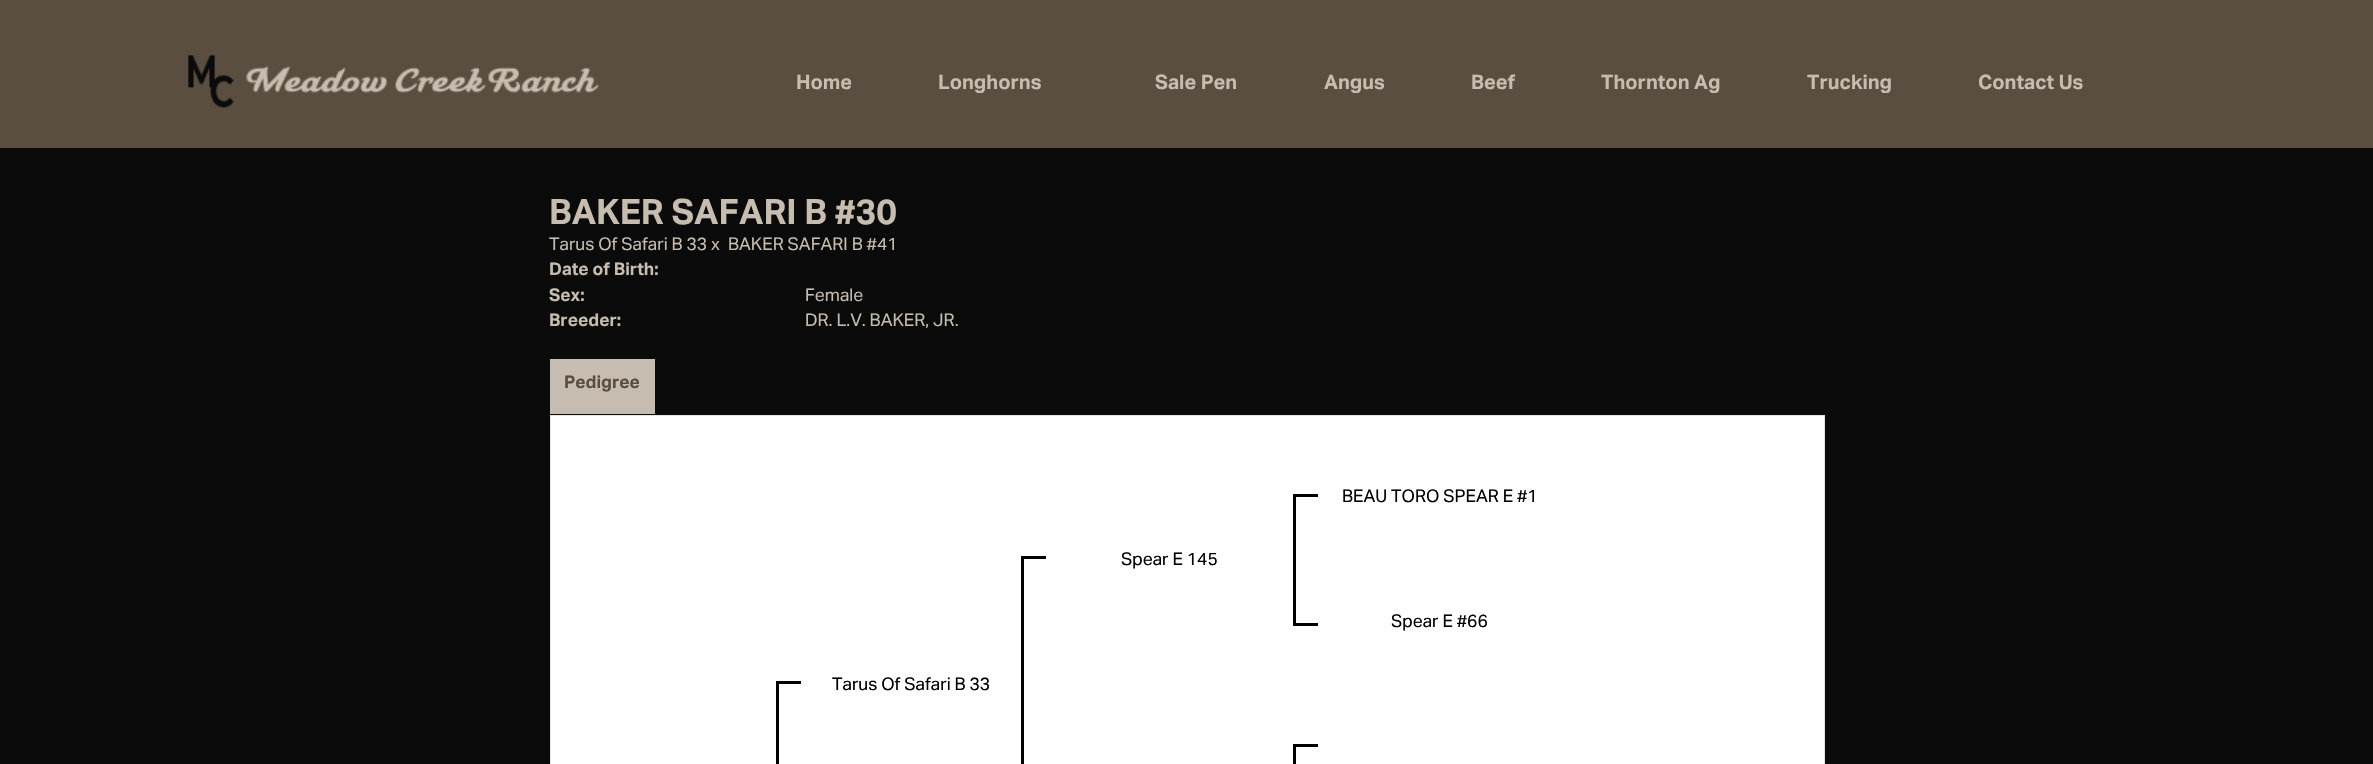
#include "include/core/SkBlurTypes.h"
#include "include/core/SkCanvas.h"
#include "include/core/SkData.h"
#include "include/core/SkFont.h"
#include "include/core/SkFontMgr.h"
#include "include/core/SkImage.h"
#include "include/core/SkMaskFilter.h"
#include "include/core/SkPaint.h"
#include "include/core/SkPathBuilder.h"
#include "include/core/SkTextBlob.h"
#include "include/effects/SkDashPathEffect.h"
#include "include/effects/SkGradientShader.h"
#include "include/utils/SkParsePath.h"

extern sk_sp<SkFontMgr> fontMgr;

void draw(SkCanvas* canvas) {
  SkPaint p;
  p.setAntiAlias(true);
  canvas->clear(SkColorSetRGB(11, 11, 11));
  p.setColor(SkColorSetRGB(90, 78, 64));
  canvas->drawRect(SkRect::MakeLTRB(0, 0, 2373, 148), p);
  canvas->drawImageRect(SkImages::DeferredFromEncodedData(SkData::MakeFromFileName("images/1.png")), SkRect::MakeLTRB(188, 55, 599, 108), SkSamplingOptions());
  p.setColor(SkColorSetRGB(229, 229, 229));
  canvas->drawRect(SkRect::MakeLTRB(550, 415, 1825, 416), p);
  p.setColor(SkColorSetRGB(198, 188, 175));
  canvas->drawRect(SkRect::MakeLTRB(550, 359, 655, 414), p);
  p.setColor(SK_ColorWHITE);
  canvas->drawRect(SkRect::MakeLTRB(551, 416, 1824, 764), p);
  p.setColor(SkColorSetRGB(229, 229, 229));
  canvas->drawPath(SkPathBuilder().moveTo(1825, 416).lineTo(1824, 416).lineTo(1824, 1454).lineTo(1824, 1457).lineTo(1825, 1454).close().detach(), p);
  canvas->drawPath(SkPathBuilder().moveTo(550, 416).lineTo(550, 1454).lineTo(551, 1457).lineTo(551, 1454).lineTo(551, 416).close().detach(), p);
  p.setColor(SK_ColorBLACK);
  canvas->drawRect(SkRect::MakeLTRB(776, 681, 801, 684), p);
  canvas->drawRect(SkRect::MakeLTRB(776, 681, 779, 764), p);
  canvas->drawRect(SkRect::MakeLTRB(1021, 556, 1046, 559), p);
  canvas->drawRect(SkRect::MakeLTRB(1021, 556, 1024, 764), p);
  canvas->drawRect(SkRect::MakeLTRB(1293, 494, 1318, 497), p);
  canvas->drawRect(SkRect::MakeLTRB(1293, 623, 1318, 626), p);
  canvas->drawRect(SkRect::MakeLTRB(1293, 494, 1296, 625), p);
  canvas->drawRect(SkRect::MakeLTRB(1293, 744, 1318, 747), p);
  canvas->drawRect(SkRect::MakeLTRB(1293, 744, 1296, 764), p);
  SkFont font1(fontMgr->matchFamilyStyle("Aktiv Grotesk", SkFontStyle::Bold()), 20);
  font1.setSubpixel(true);
  p.setColor(SkColorSetRGB(198, 188, 175));
  canvas->drawString("Home", 796, 89, font1, p);
  canvas->drawString("Longhorns", 938, 89, font1, p);
  canvas->drawString("Sale Pen", 1155, 89, font1, p);
  canvas->drawString("Angus", 1324, 89, font1, p);
  canvas->drawString("Beef", 1471, 89, font1, p);
  canvas->drawString("Thornton Ag", 1601, 89, font1, p);
  canvas->drawString("Trucking", 1807, 89, font1, p);
  canvas->drawString("Contact Us", 1978, 89, font1, p);
  SkFont font2(fontMgr->matchFamilyStyle("Aktiv Grotesk", SkFontStyle::Bold()), 35);
  font2.setSubpixel(true);
  canvas->drawString("BAKER SAFARI B #30", 549, 224, font2, p);
  SkFont font3(fontMgr->matchFamilyStyle("Aktiv Grotesk", SkFontStyle::Normal()), 17.5f);
  font3.setSubpixel(true);
  canvas->drawString("Tarus Of Safari B 33 x", 549, 250, font3, p);
  canvas->drawString("BAKER SAFARI B #41", 728, 250, font3, p);
  SkFont font4(fontMgr->matchFamilyStyle("Aktiv Grotesk", SkFontStyle::Bold()), 17.5f);
  font4.setSubpixel(true);
  canvas->drawString("Date of Birth:", 549, 275, font4, p);
  canvas->drawString("Sex:", 549, 301, font4, p);
  canvas->drawString("Female", 805, 301, font3, p);
  canvas->drawString("Breeder:", 549, 326, font4, p);
  canvas->drawString("DR. L.V. BAKER, JR.", 805, 326, font3, p);
  p.setColor(SkColorSetRGB(90, 78, 64));
  canvas->drawString("Pedigree", 564, 388, font4, p);
  p.setColor(SK_ColorBLACK);
  canvas->drawString("Tarus Of Safari B 33", 832, 690, font3, p);
  canvas->drawString("Spear E 145", 1121, 565, font3, p);
  canvas->drawString("BEAU TORO SPEAR E #1", 1342, 502, font3, p);
  canvas->drawString("Spear E #66", 1391, 627, font3, p);
}
